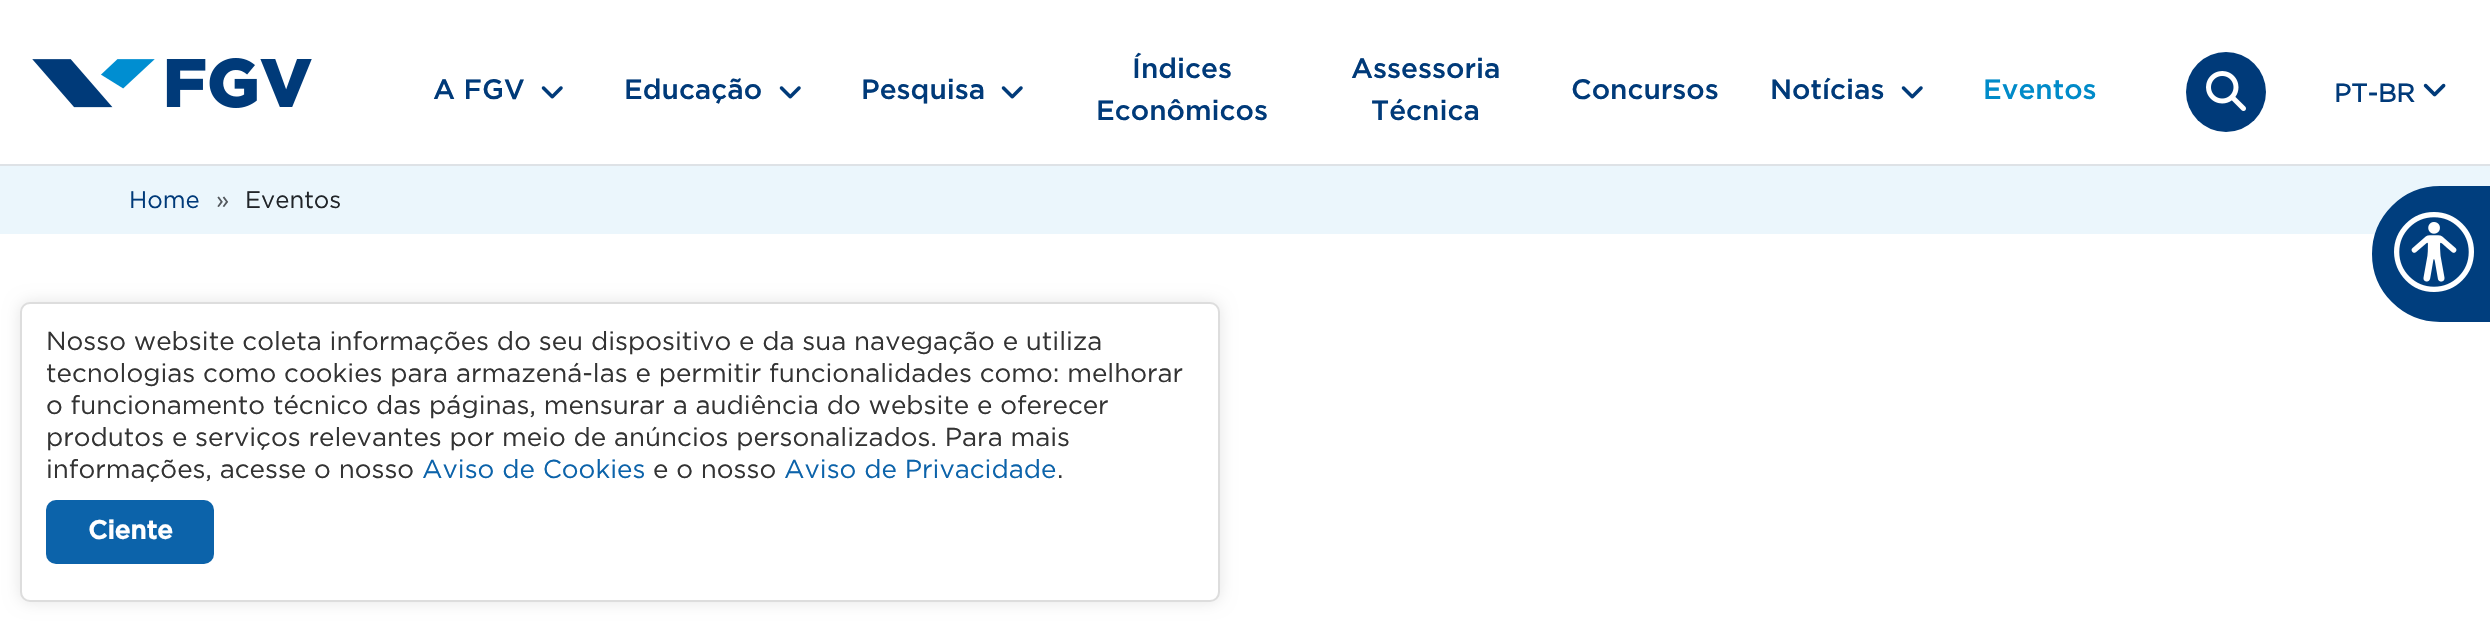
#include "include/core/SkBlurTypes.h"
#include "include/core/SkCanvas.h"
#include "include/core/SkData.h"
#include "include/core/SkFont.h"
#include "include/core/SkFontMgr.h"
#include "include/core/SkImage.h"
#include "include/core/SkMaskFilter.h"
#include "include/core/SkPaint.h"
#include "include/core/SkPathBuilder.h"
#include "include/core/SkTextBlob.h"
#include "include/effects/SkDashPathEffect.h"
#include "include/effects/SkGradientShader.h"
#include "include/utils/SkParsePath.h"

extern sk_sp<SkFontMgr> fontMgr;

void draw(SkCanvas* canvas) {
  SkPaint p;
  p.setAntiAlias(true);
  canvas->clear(SK_ColorWHITE);
  p.setColor(SkColorSetRGB(222, 226, 230));
  canvas->drawRect(SkRect::MakeLTRB(0, 164, 2490, 166), p);
  canvas->drawImageRect(SkImages::DeferredFromEncodedData(SkData::MakeFromFileName("images/1.png")), SkRect::MakeLTRB(32, 58, 312, 108), SkSamplingOptions());
  canvas->drawImageRect(SkImages::DeferredFromEncodedData(SkData::MakeFromFileName("images/2.png")), SkRect::MakeLTRB(541, 86, 563, 99), SkSamplingOptions());
  canvas->drawImageRect(SkImages::DeferredFromEncodedData(SkData::MakeFromFileName("images/2.png")), SkRect::MakeLTRB(779, 86, 801, 99), SkSamplingOptions());
  canvas->drawImageRect(SkImages::DeferredFromEncodedData(SkData::MakeFromFileName("images/2.png")), SkRect::MakeLTRB(1001, 86, 1023, 99), SkSamplingOptions());
  canvas->drawImageRect(SkImages::DeferredFromEncodedData(SkData::MakeFromFileName("images/2.png")), SkRect::MakeLTRB(1901, 86, 1923, 99), SkSamplingOptions());
  p.setColor(SkColorSetRGB(0, 58, 121));
  canvas->drawCircle(2226, 92, 40, p);
  canvas->drawImageRect(SkImages::DeferredFromEncodedData(SkData::MakeFromFileName("images/3.png")), SkRect::MakeLTRB(2206, 71, 2246, 111), SkSamplingOptions());
  canvas->drawImageRect(SkImages::DeferredFromEncodedData(SkData::MakeFromFileName("images/4.png")), SkRect::MakeLTRB(2423, 83, 2446, 97), SkSamplingOptions());
  p.setColor(SkColorSetARGB(26, 0, 0, 0));
  p.setMaskFilter(SkMaskFilter::MakeBlur(kNormal_SkBlurStyle, 8));
  canvas->drawRoundRect(SkRect::MakeLTRB(20, 302, 1220, 602), 10, 10, p);
  p.setMaskFilter(nullptr);
  p.setColor(SK_ColorWHITE);
  canvas->drawRoundRect(SkRect::MakeLTRB(21, 303, 1219, 601), 9, 9, p);
  p.setStyle(SkPaint::kStroke_Style);
  p.setStrokeWidth(2);
  p.setColor(SkColorSetRGB(221, 221, 221));
  canvas->drawRoundRect(SkRect::MakeLTRB(21, 303, 1219, 601), 9, 9, p);
  p.setStyle(SkPaint::kFill_Style);
  p.setColor(SkColorSetRGB(12, 99, 170));
  canvas->drawRoundRect(SkRect::MakeLTRB(46, 500, 214, 564), 10, 10, p);
  p.setColor(SkColorSetRGB(235, 246, 252));
  canvas->drawRect(SkRect::MakeLTRB(0, 166, 2490, 234), p);
  p.setColor(SkColorSetRGB(0, 62, 126));
  canvas->drawPath(SkPathBuilder().moveTo(2440, 189).lineTo(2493, 189).lineTo(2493, 319).lineTo(2440, 319).cubicTo(2404, 319, 2375, 290, 2375, 254).cubicTo(2375, 218, 2404, 189, 2440, 189).close().detach(), p);
  p.setStyle(SkPaint::kStroke_Style);
  p.setStrokeWidth(6);
  canvas->drawPath(SkPathBuilder().moveTo(2440, 189).lineTo(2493, 189).lineTo(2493, 319).lineTo(2440, 319).cubicTo(2404, 319, 2375, 290, 2375, 254).cubicTo(2375, 218, 2404, 189, 2440, 189).close().detach(), p);
  canvas->drawImageRect(SkImages::DeferredFromEncodedData(SkData::MakeFromFileName("images/5.png")), SkRect::MakeLTRB(2394, 212, 2474, 292), SkSamplingOptions());
  SkFont font1(fontMgr->matchFamilyStyle("Gotham", SkFontStyle(500, SkFontStyle::kNormal_Width, SkFontStyle::kUpright_Slant)), 28);
  font1.setSubpixel(true);
  p.setStyle(SkPaint::kFill_Style);
  p.setColor(SkColorSetRGB(0, 58, 121));
  canvas->drawString("A FGV", 433, 99, font1, p);
  canvas->drawString("Educação", 624, 99, font1, p);
  canvas->drawString("Pesquisa", 861, 99, font1, p);
  canvas->drawString("Índices", 1132, 78, font1, p);
  canvas->drawString("Econômicos", 1096, 120, font1, p);
  canvas->drawString("Assessoria", 1351, 78, font1, p);
  canvas->drawString("Técnica", 1371, 120, font1, p);
  canvas->drawString("Concursos", 1571, 99, font1, p);
  canvas->drawString("Notícias", 1770, 99, font1, p);
  p.setColor(SkColorSetRGB(0, 139, 201));
  canvas->drawString("Eventos", 1983, 99, font1, p);
  SkFont font2(fontMgr->matchFamilyStyle("Gotham", SkFontStyle::Bold()), 25.5f);
  font2.setSubpixel(true);
  p.setColor(SkColorSetRGB(0, 58, 121));
  canvas->drawString("PT-BR", 2334, 102, font2, p);
  SkFont font3(fontMgr->matchFamilyStyle("Gotham", SkFontStyle::Normal()), 26);
  font3.setSubpixel(true);
  p.setColor(SkColorSetRGB(51, 51, 51));
  canvas->drawString("Nosso website coleta informações do seu dispositivo e da sua navegação e utiliza", 46, 350, font3, p);
  canvas->drawString("tecnologias como cookies para armazená-las e permitir funcionalidades como: melhorar", 46, 382, font3, p);
  canvas->drawString("o funcionamento técnico das páginas, mensurar a audiência do website e oferecer", 46, 414, font3, p);
  canvas->drawString("produtos e serviços relevantes por meio de anúncios personalizados. Para mais", 46, 446, font3, p);
  canvas->drawString("informações, acesse o nosso", 46, 478, font3, p);
  p.setColor(SkColorSetRGB(12, 99, 170));
  canvas->drawString("Aviso de Cookies", 422, 478, font3, p);
  p.setColor(SkColorSetRGB(51, 51, 51));
  canvas->drawString("e o nosso", 653, 478, font3, p);
  p.setColor(SkColorSetRGB(12, 99, 170));
  canvas->drawString("Aviso de Privacidade", 784, 478, font3, p);
  p.setColor(SkColorSetRGB(51, 51, 51));
  canvas->drawString(".", 1057, 478, font3, p);
  SkFont font4(fontMgr->matchFamilyStyle("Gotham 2", SkFontStyle::Bold()), 26);
  font4.setSubpixel(true);
  p.setColor(SK_ColorWHITE);
  canvas->drawString("Ciente", 88, 539, font4, p);
  SkFont font5(fontMgr->matchFamilyStyle("Gotham", SkFontStyle::Normal()), 24);
  font5.setSubpixel(true);
  p.setColor(SkColorSetRGB(0, 58, 121));
  canvas->drawString("Home", 129, 208, font5, p);
  p.setColor(SkColorSetRGB(84, 89, 94));
  canvas->drawString("»", 216, 208, font5, p);
  p.setColor(SkColorSetRGB(33, 37, 41));
  canvas->drawString("Eventos", 245, 208, font5, p);
}
